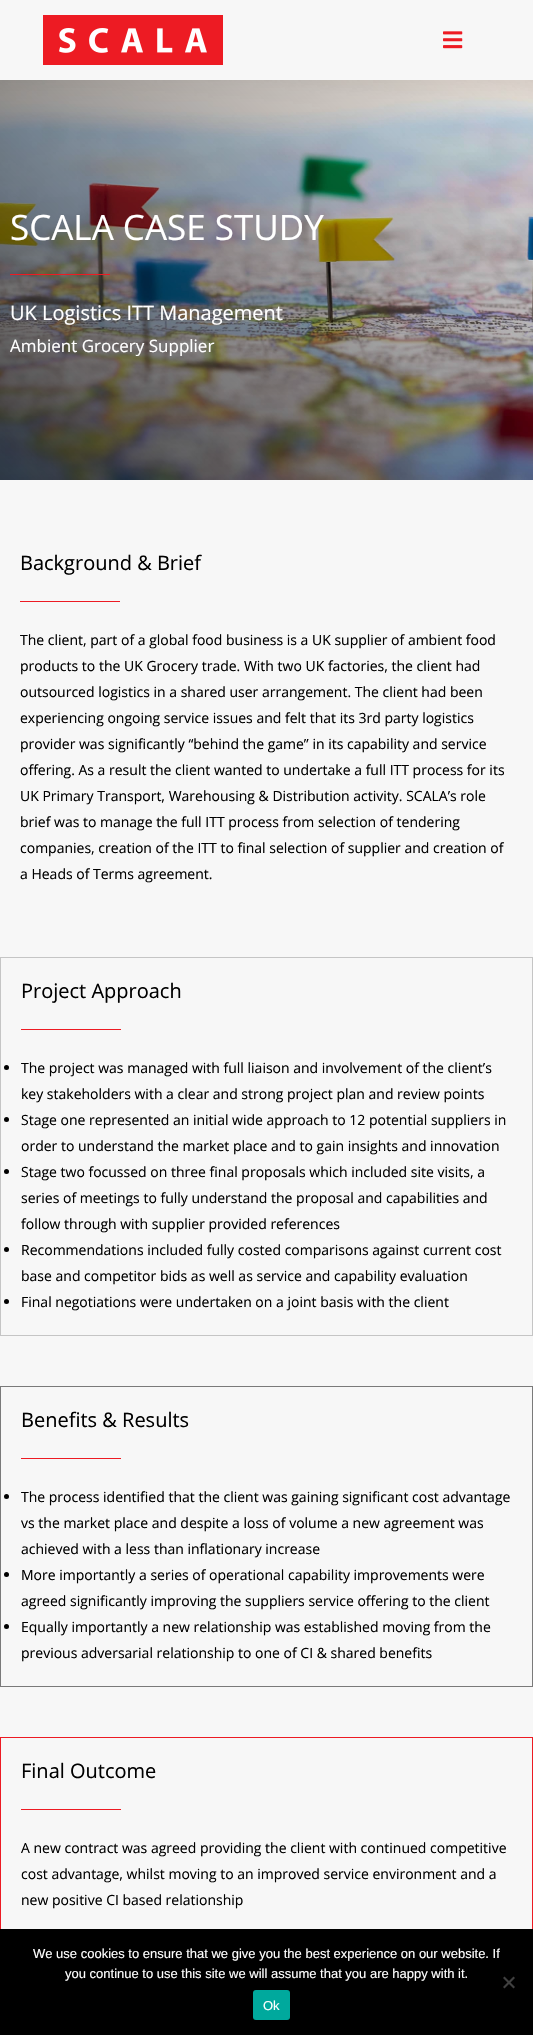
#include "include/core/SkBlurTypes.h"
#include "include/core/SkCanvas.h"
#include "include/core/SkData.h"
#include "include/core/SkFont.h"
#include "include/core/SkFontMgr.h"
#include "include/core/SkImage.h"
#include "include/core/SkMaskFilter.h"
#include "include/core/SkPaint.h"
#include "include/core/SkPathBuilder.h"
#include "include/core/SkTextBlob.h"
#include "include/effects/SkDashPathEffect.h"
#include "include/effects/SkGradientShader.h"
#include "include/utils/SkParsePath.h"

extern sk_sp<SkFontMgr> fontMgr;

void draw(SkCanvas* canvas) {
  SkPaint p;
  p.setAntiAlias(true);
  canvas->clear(SkColorSetRGB(247, 247, 247));
  canvas->drawImageRect(SkImages::DeferredFromEncodedData(SkData::MakeFromFileName("images/1.png")), SkRect::MakeLTRB(43, 15, 223, 65), SkSamplingOptions());
  canvas->drawImageRect(SkImages::DeferredFromEncodedData(SkData::MakeFromFileName("images/2.png")), SkRect::MakeLTRB(443, 31, 463, 49), SkSamplingOptions());
  canvas->drawImageRect(SkImages::DeferredFromEncodedData(SkData::MakeFromFileName("images/3.png")), SkRect::MakeLTRB(0, 80, 533, 480), SkSamplingOptions());
  p.setColor(SkColorSetRGB(237, 27, 35));
  canvas->drawRect(SkRect::MakeLTRB(10, 274, 110, 275), p);
  canvas->drawRect(SkRect::MakeLTRB(20, 601, 120, 602), p);
  p.setStyle(SkPaint::kStroke_Style);
  p.setStrokeWidth(1);
  p.setColor(SkColorSetRGB(197, 197, 197));
  canvas->drawRect(SkRect::MakeLTRB(0.5f, 957.5f, 532.5f, 1335.5f), p);
  p.setStyle(SkPaint::kFill_Style);
  p.setColor(SkColorSetRGB(237, 27, 35));
  canvas->drawRect(SkRect::MakeLTRB(21, 1029, 121, 1030), p);
  p.setColor(SK_ColorBLACK);
  canvas->drawCircle(6.5f, 1067.5f, 2.5f, p);
  canvas->drawCircle(6.5f, 1119.5f, 2.5f, p);
  canvas->drawCircle(6.5f, 1171.5f, 2.5f, p);
  canvas->drawCircle(6.5f, 1249.5f, 2.5f, p);
  canvas->drawCircle(6.5f, 1301.5f, 2.5f, p);
  p.setStyle(SkPaint::kStroke_Style);
  p.setColor(SkColorSetRGB(122, 122, 122));
  canvas->drawRect(SkRect::MakeLTRB(0.5f, 1386.5f, 532.5f, 1686.5f), p);
  p.setStyle(SkPaint::kFill_Style);
  p.setColor(SkColorSetRGB(237, 27, 35));
  canvas->drawRect(SkRect::MakeLTRB(21, 1458, 121, 1459), p);
  p.setColor(SK_ColorBLACK);
  canvas->drawCircle(6.5f, 1496.5f, 2.5f, p);
  canvas->drawCircle(6.5f, 1574.5f, 2.5f, p);
  canvas->drawCircle(6.5f, 1626.5f, 2.5f, p);
  p.setStyle(SkPaint::kStroke_Style);
  p.setColor(SkColorSetRGB(237, 27, 35));
  canvas->drawRect(SkRect::MakeLTRB(0.5f, 1737.5f, 532.5f, 1933.5f), p);
  p.setStyle(SkPaint::kFill_Style);
  canvas->drawRect(SkRect::MakeLTRB(21, 1809, 121, 1810), p);
  p.setColor(SK_ColorBLACK);
  canvas->drawRect(SkRect::MakeLTRB(0, 1929, 533, 2035), p);
  p.setColor(SkColorSetRGB(64, 64, 64));
  canvas->drawPath(SkPathBuilder().moveTo(513.5f, 1976.5f).lineTo(515, 1978).lineTo(504.5f, 1988.5f).lineTo(503, 1987).close().detach(), p);
  canvas->drawPath(SkPathBuilder().moveTo(503, 1978).lineTo(504.5f, 1976.5f).lineTo(515, 1987).lineTo(513.5f, 1988.5f).close().detach(), p);
  p.setColor(SkColorSetRGB(0, 169, 157));
  canvas->drawRoundRect(SkRect::MakeLTRB(253, 1990, 290, 2020), 3, 3, p);
  SkFont font1(fontMgr->matchFamilyStyle("Open Sans", SkFontStyle::Normal()), 35);
  font1.setSubpixel(true);
  p.setColor(SK_ColorWHITE);
  canvas->drawString("SCALA CASE STUDY", 10, 240, font1, p);
  SkFont font2(fontMgr->matchFamilyStyle("Open Sans", SkFontStyle::Normal()), 20);
  font2.setSubpixel(true);
  canvas->drawString("UK Logistics ITT Management", 10, 320, font2, p);
  SkFont font3(fontMgr->matchFamilyStyle("Open Sans", SkFontStyle::Normal()), 17);
  font3.setSubpixel(true);
  canvas->drawString("Ambient Grocery Supplier", 10, 352, font3, p);
  p.setColor(SK_ColorBLACK);
  canvas->drawString("Background & Brief", 20, 570, font2, p);
  SkFont font4(fontMgr->matchFamilyStyle("Open Sans", SkFontStyle::Normal()), 14);
  font4.setSubpixel(true);
  canvas->drawString("The client, part of a global food business is a UK supplier of ambient food", 20, 645, font4, p);
  canvas->drawString("products to the UK Grocery trade. With two UK factories, the client had", 20, 671, font4, p);
  canvas->drawString("outsourced logistics in a shared user arrangement. The client had been", 20, 697, font4, p);
  canvas->drawString("experiencing ongoing service issues and felt that its 3rd party logistics", 20, 723, font4, p);
  canvas->drawString("provider was significantly “behind the game” in its capability and service", 20, 749, font4, p);
  canvas->drawString("offering. As a result the client wanted to undertake a full ITT process for its", 20, 775, font4, p);
  canvas->drawString("UK Primary Transport, Warehousing & Distribution activity. SCALA’s role", 20, 801, font4, p);
  canvas->drawString("brief was to manage the full ITT process from selection of tendering", 20, 827, font4, p);
  canvas->drawString("companies, creation of the ITT to final selection of supplier and creation of", 20, 853, font4, p);
  canvas->drawString("a Heads of Terms agreement.", 20, 879, font4, p);
  canvas->drawString("Project Approach", 21, 998, font2, p);
  canvas->drawString("The project was managed with full liaison and involvement of the client’s", 21, 1073, font4, p);
  canvas->drawString("key stakeholders with a clear and strong project plan and review points", 21, 1099, font4, p);
  canvas->drawString("Stage one represented an initial wide approach to 12 potential suppliers in", 21, 1125, font4, p);
  canvas->drawString("order to understand the market place and to gain insights and innovation", 21, 1151, font4, p);
  canvas->drawString("Stage two focussed on three final proposals which included site visits, a", 21, 1177, font4, p);
  canvas->drawString("series of meetings to fully understand the proposal and capabilities and", 21, 1203, font4, p);
  canvas->drawString("follow through with supplier provided references", 21, 1229, font4, p);
  canvas->drawString("Recommendations included fully costed comparisons against current cost", 21, 1255, font4, p);
  canvas->drawString("base and competitor bids as well as service and capability evaluation", 21, 1281, font4, p);
  canvas->drawString("Final negotiations were undertaken on a joint basis with the client", 21, 1307, font4, p);
  canvas->drawString("Benefits & Results", 21, 1427, font2, p);
  canvas->drawString("The process identified that the client was gaining significant cost advantage", 21, 1502, font4, p);
  canvas->drawString("vs the market place and despite a loss of volume a new agreement was", 21, 1528, font4, p);
  canvas->drawString("achieved with a less than inflationary increase", 21, 1554, font4, p);
  canvas->drawString("More importantly a series of operational capability improvements were", 21, 1580, font4, p);
  canvas->drawString("agreed significantly improving the suppliers service offering to the client", 21, 1606, font4, p);
  canvas->drawString("Equally importantly a new relationship was established moving from the", 21, 1632, font4, p);
  canvas->drawString("previous adversarial relationship to one of CI & shared benefits", 21, 1658, font4, p);
  canvas->drawString("Final Outcome", 21, 1778, font2, p);
  canvas->drawString("A new contract was agreed providing the client with continued competitive", 21, 1853, font4, p);
  canvas->drawString("cost advantage, whilst moving to an improved service environment and a", 21, 1879, font4, p);
  canvas->drawString("new positive CI based relationship", 21, 1905, font4, p);
  SkFont font5(fontMgr->matchFamilyStyle("Liberation Sans", SkFontStyle::Normal()), 13);
  font5.setSubpixel(true);
  p.setColor(SK_ColorWHITE);
  canvas->drawString("We use cookies to ensure that we give you the best experience on our website. If", 33, 1958, font5, p);
  canvas->drawString("you continue to use this site we will assume that you are happy with it.", 65, 1978, font5, p);
  canvas->drawString("Ok", 263, 2010, font5, p);
}
